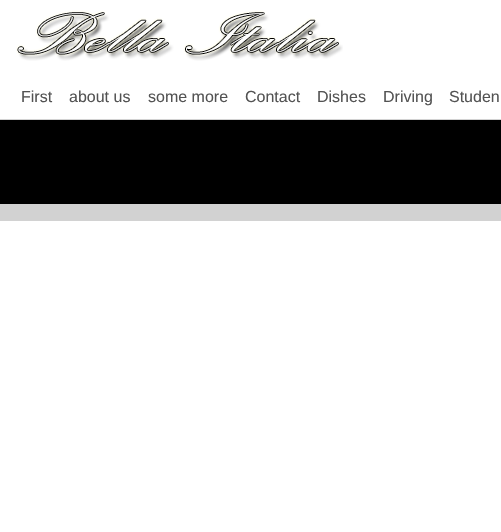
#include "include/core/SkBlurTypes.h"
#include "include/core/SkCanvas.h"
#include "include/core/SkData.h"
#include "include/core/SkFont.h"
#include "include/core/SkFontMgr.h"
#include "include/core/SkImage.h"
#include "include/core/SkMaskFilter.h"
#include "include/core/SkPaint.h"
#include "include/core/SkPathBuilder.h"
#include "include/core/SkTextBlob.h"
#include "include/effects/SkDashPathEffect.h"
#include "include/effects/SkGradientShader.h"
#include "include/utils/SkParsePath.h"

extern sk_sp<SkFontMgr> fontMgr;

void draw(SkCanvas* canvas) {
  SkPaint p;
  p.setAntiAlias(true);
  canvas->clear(SK_ColorWHITE);
  canvas->drawImageRect(SkImages::DeferredFromEncodedData(SkData::MakeFromFileName("images/1.png")), SkRect::MakeLTRB(16, 10, 343, 61), SkSamplingOptions());
  p.setColor(SkColorSetRGB(210, 210, 210));
  canvas->drawRect(SkRect::MakeLTRB(0, 119, 501, 221), p);
  p.setColor(SK_ColorBLACK);
  canvas->drawRect(SkRect::MakeLTRB(0, 120, 501, 204), p);
  SkFont font1(fontMgr->matchFamilyStyle("Liberation Sans", SkFontStyle::Normal()), 16);
  font1.setSubpixel(true);
  p.setColor(SkColorSetRGB(83, 83, 83));
  canvas->drawString("First", 21, 102, font1, p);
  canvas->drawString("about us", 69, 102, font1, p);
  canvas->drawString("some more", 148, 102, font1, p);
  canvas->drawString("Contact", 245, 102, font1, p);
  canvas->drawString("Dishes", 317, 102, font1, p);
  canvas->drawString("Driving", 383, 102, font1, p);
  canvas->drawString("Studen", 449, 102, font1, p);
}
